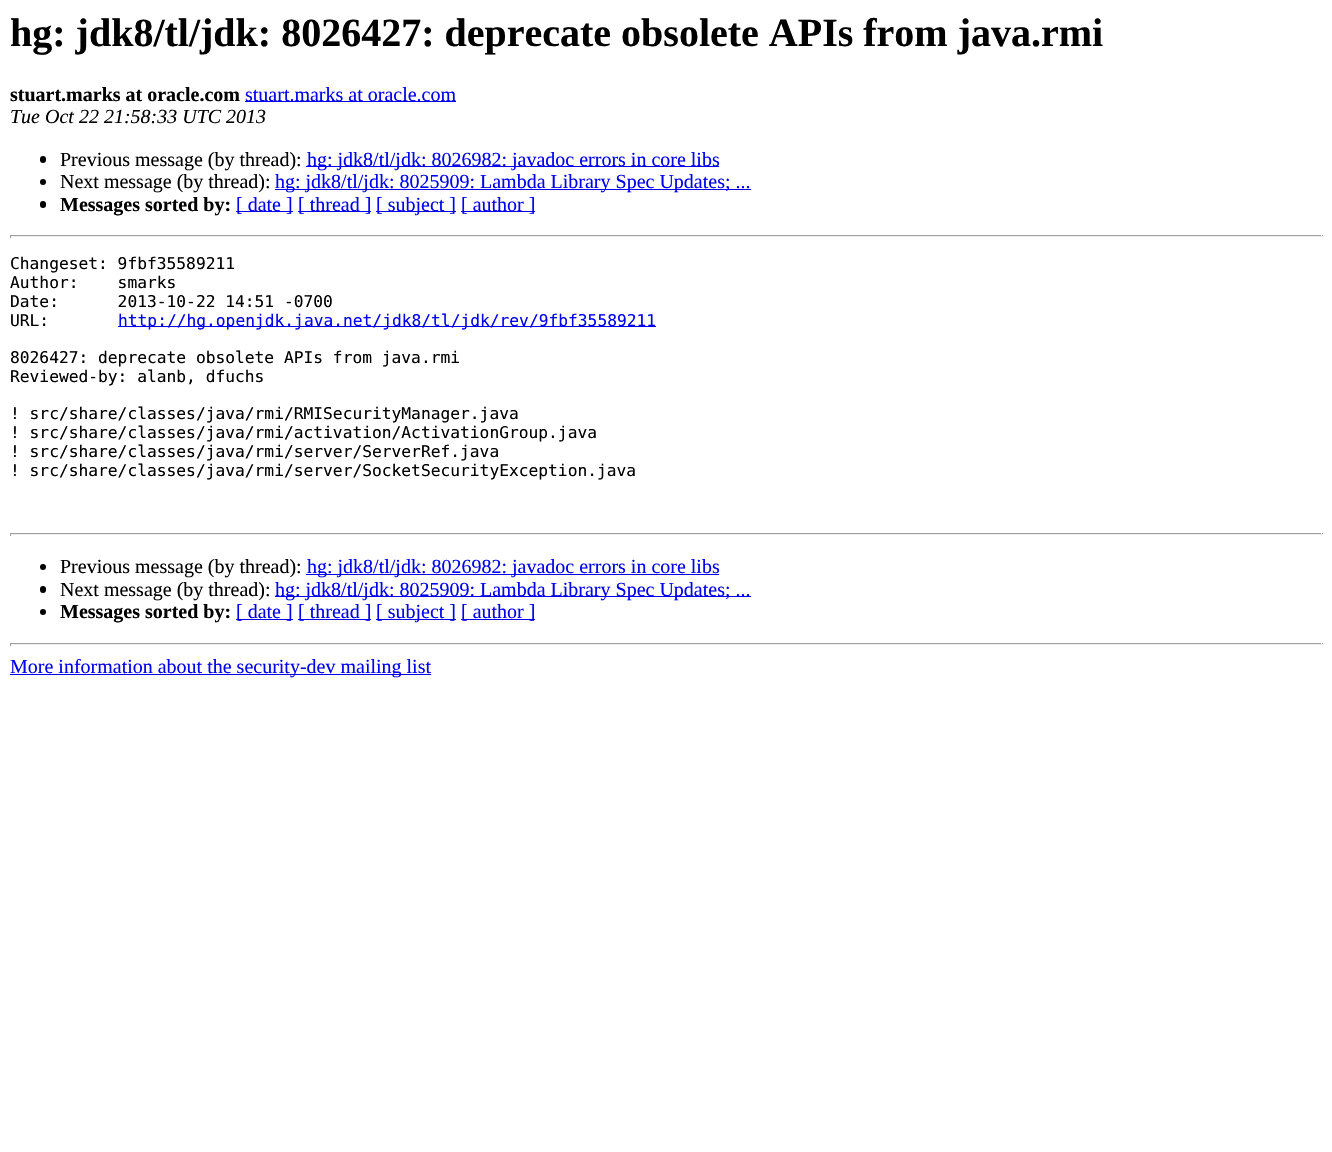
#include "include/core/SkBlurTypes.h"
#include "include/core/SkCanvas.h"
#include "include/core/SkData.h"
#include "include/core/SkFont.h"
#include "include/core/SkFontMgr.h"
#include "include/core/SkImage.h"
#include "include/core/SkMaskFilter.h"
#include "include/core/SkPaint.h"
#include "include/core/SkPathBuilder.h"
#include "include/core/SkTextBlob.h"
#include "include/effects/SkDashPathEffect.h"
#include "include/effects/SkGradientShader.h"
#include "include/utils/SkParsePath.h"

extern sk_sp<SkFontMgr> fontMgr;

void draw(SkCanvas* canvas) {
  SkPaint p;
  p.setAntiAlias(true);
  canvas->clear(SK_ColorWHITE);
  p.setColor(SkColorSetRGB(0, 0, 238));
  canvas->drawRect(SkRect::MakeLTRB(245, 101, 456, 102), p);
  p.setColor(SK_ColorBLACK);
  canvas->drawRoundRect(SkRect::MakeLTRB(40, 156, 46, 163), 3, 3, p);
  p.setColor(SkColorSetRGB(0, 0, 238));
  canvas->drawRect(SkRect::MakeLTRB(306, 166, 719, 167), p);
  p.setColor(SK_ColorBLACK);
  canvas->drawCircle(43, 182, 3, p);
  p.setColor(SkColorSetRGB(0, 0, 238));
  canvas->drawRect(SkRect::MakeLTRB(275, 189, 751, 190), p);
  p.setColor(SK_ColorBLACK);
  canvas->drawRoundRect(SkRect::MakeLTRB(40, 201, 46, 208), 3, 3, p);
  p.setColor(SkColorSetRGB(0, 0, 238));
  canvas->drawRect(SkRect::MakeLTRB(236, 211, 293, 212), p);
  canvas->drawRect(SkRect::MakeLTRB(298, 211, 371, 212), p);
  canvas->drawRect(SkRect::MakeLTRB(376, 211, 456, 212), p);
  canvas->drawRect(SkRect::MakeLTRB(461, 211, 535, 212), p);
  p.setColor(SkColorSetRGB(159, 159, 159));
  canvas->drawRect(SkRect::MakeLTRB(10, 235, 1323, 236), p);
  p.setColor(SkColorSetRGB(238, 238, 238));
  canvas->drawRect(SkRect::MakeLTRB(1321, 235, 1322, 238), p);
  canvas->drawRect(SkRect::MakeLTRB(10, 236, 1323, 237), p);
  p.setColor(SkColorSetRGB(159, 159, 159));
  canvas->drawRect(SkRect::MakeLTRB(10, 235, 11, 238), p);
  p.setColor(SkColorSetRGB(0, 0, 238));
  canvas->drawRect(SkRect::MakeLTRB(118, 326, 656, 327), p);
  p.setColor(SkColorSetRGB(159, 159, 159));
  canvas->drawRect(SkRect::MakeLTRB(10, 533, 1323, 534), p);
  p.setColor(SkColorSetRGB(238, 238, 238));
  canvas->drawRect(SkRect::MakeLTRB(1321, 533, 1322, 536), p);
  canvas->drawRect(SkRect::MakeLTRB(10, 534, 1323, 535), p);
  p.setColor(SkColorSetRGB(159, 159, 159));
  canvas->drawRect(SkRect::MakeLTRB(10, 533, 11, 536), p);
  p.setColor(SK_ColorBLACK);
  canvas->drawCircle(43, 567, 3, p);
  p.setColor(SkColorSetRGB(0, 0, 238));
  canvas->drawRect(SkRect::MakeLTRB(306, 574, 719, 575), p);
  p.setColor(SK_ColorBLACK);
  canvas->drawRoundRect(SkRect::MakeLTRB(40, 586, 46, 593), 3, 3, p);
  p.setColor(SkColorSetRGB(0, 0, 238));
  canvas->drawRect(SkRect::MakeLTRB(275, 596, 751, 597), p);
  p.setColor(SK_ColorBLACK);
  canvas->drawCircle(43, 612, 3, p);
  p.setColor(SkColorSetRGB(0, 0, 238));
  canvas->drawRect(SkRect::MakeLTRB(236, 619, 293, 620), p);
  canvas->drawRect(SkRect::MakeLTRB(298, 619, 371, 620), p);
  canvas->drawRect(SkRect::MakeLTRB(376, 619, 456, 620), p);
  canvas->drawRect(SkRect::MakeLTRB(461, 619, 535, 620), p);
  p.setColor(SkColorSetRGB(159, 159, 159));
  canvas->drawRect(SkRect::MakeLTRB(10, 643, 1323, 644), p);
  p.setColor(SkColorSetRGB(238, 238, 238));
  canvas->drawRect(SkRect::MakeLTRB(1321, 643, 1322, 646), p);
  canvas->drawRect(SkRect::MakeLTRB(10, 644, 1323, 645), p);
  p.setColor(SkColorSetRGB(159, 159, 159));
  canvas->drawRect(SkRect::MakeLTRB(10, 643, 11, 646), p);
  p.setColor(SkColorSetRGB(0, 0, 238));
  canvas->drawRect(SkRect::MakeLTRB(10, 674, 431, 675), p);
  SkFont font1(fontMgr->matchFamilyStyle("Liberation Serif", SkFontStyle::Bold()), 40);
  font1.setSubpixel(true);
  p.setColor(SK_ColorBLACK);
  canvas->drawString("hg: jdk8/tl/jdk: 8026427: deprecate obsolete APIs from java.rmi", 10, 46, font1, p);
  SkFont font2(fontMgr->matchFamilyStyle("Liberation Serif", SkFontStyle::Bold()), 20);
  font2.setSubpixel(true);
  canvas->drawString("stuart.marks at oracle.com", 10, 101, font2, p);
  SkFont font3(fontMgr->matchFamilyStyle("Liberation Serif", SkFontStyle::Normal()), 20);
  font3.setSubpixel(true);
  p.setColor(SkColorSetRGB(0, 0, 238));
  canvas->drawString("stuart.marks at oracle.com", 245, 101, font3, p);
  SkFont font4(fontMgr->matchFamilyStyle("Liberation Serif", SkFontStyle::Italic()), 20);
  font4.setSubpixel(true);
  p.setColor(SK_ColorBLACK);
  canvas->drawString("Tue Oct 22 21:58:33 UTC 2013", 10, 123, font4, p);
  canvas->drawString("Previous message (by thread):", 60, 166, font3, p);
  p.setColor(SkColorSetRGB(0, 0, 238));
  canvas->drawString("hg: jdk8/tl/jdk: 8026982: javadoc errors in core libs", 307, 166, font3, p);
  p.setColor(SK_ColorBLACK);
  canvas->drawString("Next message (by thread):", 60, 188, font3, p);
  p.setColor(SkColorSetRGB(0, 0, 238));
  canvas->drawString("hg: jdk8/tl/jdk: 8025909: Lambda Library Spec Updates; ...", 275, 188, font3, p);
  p.setColor(SK_ColorBLACK);
  canvas->drawString("Messages sorted by:", 60, 211, font2, p);
  p.setColor(SkColorSetRGB(0, 0, 238));
  canvas->drawString("[ date ]", 236, 211, font3, p);
  canvas->drawString("[ thread ]", 298, 211, font3, p);
  canvas->drawString("[ subject ]", 376, 211, font3, p);
  canvas->drawString("[ author ]", 461, 211, font3, p);
  SkFont font5(fontMgr->matchFamilyStyle("DejaVu Sans Mono", SkFontStyle::Normal()), 16.25f);
  font5.setSubpixel(true);
  p.setColor(SK_ColorBLACK);
  canvas->drawString("Changeset: 9fbf35589211", 10, 269, font5, p);
  canvas->drawString("Author:    smarks", 10, 288, font5, p);
  canvas->drawString("Date:      2013-10-22 14:51 -0700", 10, 307, font5, p);
  canvas->drawString("URL:", 10, 326, font5, p);
  p.setColor(SkColorSetRGB(0, 0, 238));
  canvas->drawString("http://hg.openjdk.java.net/jdk8/tl/jdk/rev/9fbf35589211", 118, 326, font5, p);
  p.setColor(SK_ColorBLACK);
  canvas->drawString("8026427: deprecate obsolete APIs from java.rmi", 10, 363, font5, p);
  canvas->drawString("Reviewed-by: alanb, dfuchs", 10, 382, font5, p);
  canvas->drawString("! src/share/classes/java/rmi/RMISecurityManager.java", 10, 419, font5, p);
  canvas->drawString("! src/share/classes/java/rmi/activation/ActivationGroup.java", 10, 438, font5, p);
  canvas->drawString("! src/share/classes/java/rmi/server/ServerRef.java", 10, 457, font5, p);
  canvas->drawString("! src/share/classes/java/rmi/server/SocketSecurityException.java", 10, 476, font5, p);
  canvas->drawString("Previous message (by thread):", 60, 573, font3, p);
  p.setColor(SkColorSetRGB(0, 0, 238));
  canvas->drawString("hg: jdk8/tl/jdk: 8026982: javadoc errors in core libs", 307, 573, font3, p);
  p.setColor(SK_ColorBLACK);
  canvas->drawString("Next message (by thread):", 60, 596, font3, p);
  p.setColor(SkColorSetRGB(0, 0, 238));
  canvas->drawString("hg: jdk8/tl/jdk: 8025909: Lambda Library Spec Updates; ...", 275, 596, font3, p);
  p.setColor(SK_ColorBLACK);
  canvas->drawString("Messages sorted by:", 60, 618, font2, p);
  p.setColor(SkColorSetRGB(0, 0, 238));
  canvas->drawString("[ date ]", 236, 618, font3, p);
  canvas->drawString("[ thread ]", 298, 618, font3, p);
  canvas->drawString("[ subject ]", 376, 618, font3, p);
  canvas->drawString("[ author ]", 461, 618, font3, p);
  canvas->drawString("More information about the security-dev mailing list", 10, 673, font3, p);
}
